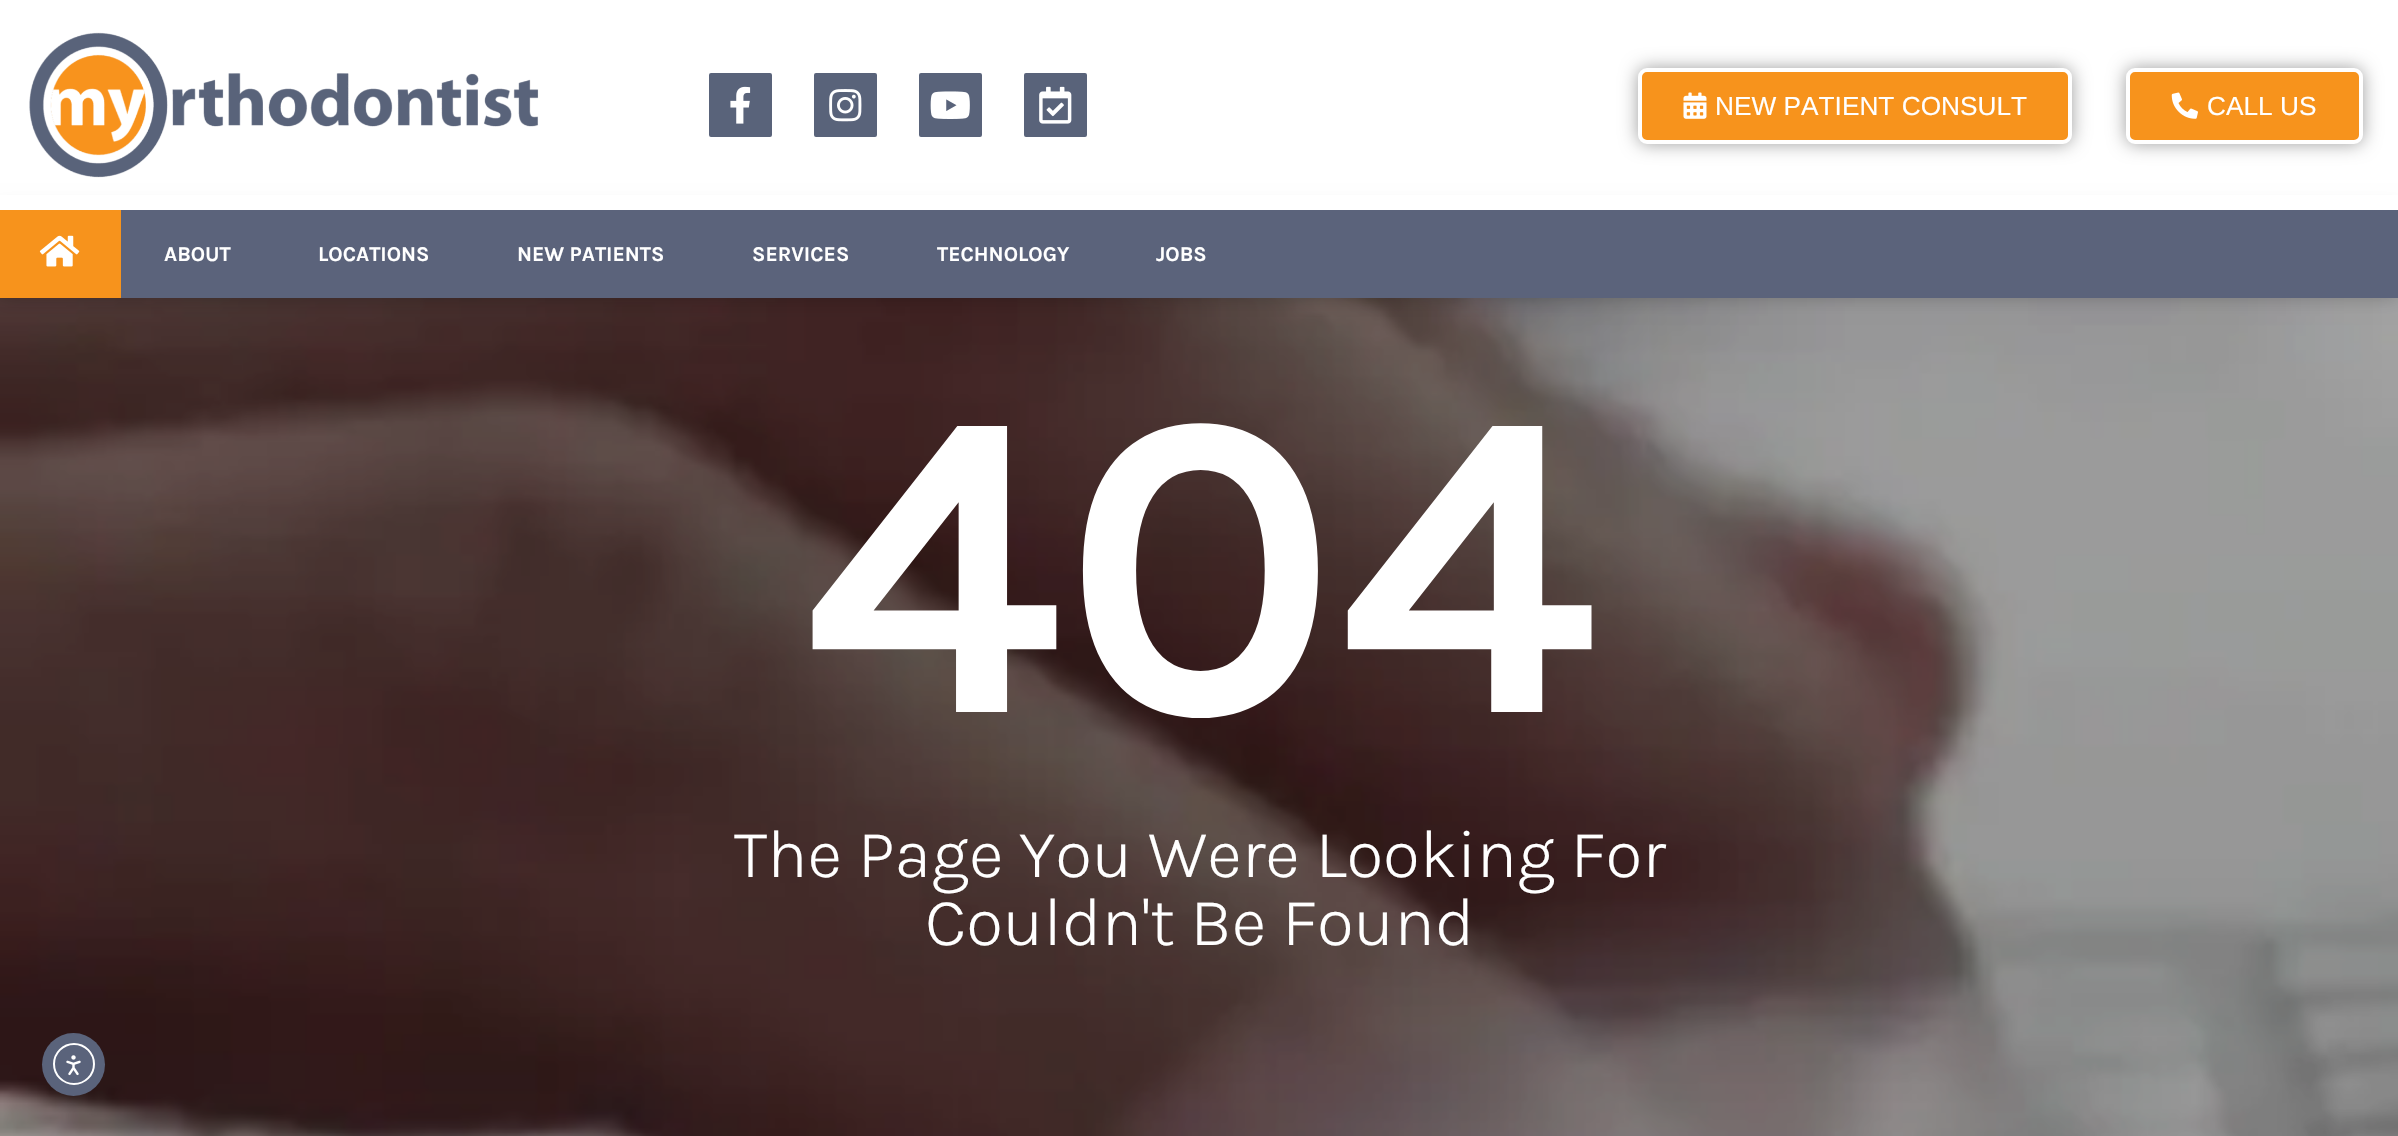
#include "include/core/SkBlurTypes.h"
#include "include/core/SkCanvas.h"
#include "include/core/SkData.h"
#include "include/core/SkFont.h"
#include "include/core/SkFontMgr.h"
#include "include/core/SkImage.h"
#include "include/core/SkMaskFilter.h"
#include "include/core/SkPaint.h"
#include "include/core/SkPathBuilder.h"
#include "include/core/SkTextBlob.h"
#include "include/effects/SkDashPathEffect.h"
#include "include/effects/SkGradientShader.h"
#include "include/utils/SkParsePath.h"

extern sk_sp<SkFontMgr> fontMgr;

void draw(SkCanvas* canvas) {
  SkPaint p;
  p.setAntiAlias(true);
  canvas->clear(SK_ColorWHITE);
  canvas->drawImageRect(SkImages::DeferredFromEncodedData(SkData::MakeFromFileName("images/9.png")), SkRect::MakeLTRB(0, 298, 2398, 1136), SkSamplingOptions());
  p.setColor(SkColorSetARGB(56, 0, 0, 0));
  p.setMaskFilter(SkMaskFilter::MakeBlur(kNormal_SkBlurStyle, 9));
  canvas->drawRect(SkRect::MakeLTRB(0, 210, 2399, 298), p);
  p.setMaskFilter(nullptr);
  p.setColor(SK_ColorWHITE);
  canvas->drawRect(SkRect::MakeLTRB(0, 195, 2398, 210), p);
  canvas->drawImageRect(SkImages::DeferredFromEncodedData(SkData::MakeFromFileName("images/1.png")), SkRect::MakeLTRB(29, 32, 539, 178), SkSamplingOptions());
  p.setColor(SkColorSetRGB(89, 99, 122));
  canvas->drawRoundRect(SkRect::MakeLTRB(706.5f, 70.5f, 774.5f, 139.5f), 4.5f, 4.5f, p);
  p.setStyle(SkPaint::kStroke_Style);
  p.setStrokeWidth(5);
  p.setColor(SK_ColorWHITE);
  canvas->drawRoundRect(SkRect::MakeLTRB(706.5f, 70.5f, 774.5f, 139.5f), 4.5f, 4.5f, p);
  canvas->drawImageRect(SkImages::DeferredFromEncodedData(SkData::MakeFromFileName("images/2.png")), SkRect::MakeLTRB(730, 86, 751, 124), SkSamplingOptions());
  p.setStyle(SkPaint::kFill_Style);
  p.setColor(SkColorSetRGB(89, 99, 122));
  canvas->drawRoundRect(SkRect::MakeLTRB(811.5f, 70.5f, 879.5f, 139.5f), 4.5f, 4.5f, p);
  p.setStyle(SkPaint::kStroke_Style);
  p.setColor(SK_ColorWHITE);
  canvas->drawRoundRect(SkRect::MakeLTRB(811.5f, 70.5f, 879.5f, 139.5f), 4.5f, 4.5f, p);
  canvas->drawImageRect(SkImages::DeferredFromEncodedData(SkData::MakeFromFileName("images/3.png")), SkRect::MakeLTRB(829, 89, 862, 122), SkSamplingOptions());
  p.setStyle(SkPaint::kFill_Style);
  p.setColor(SkColorSetRGB(89, 99, 122));
  canvas->drawRoundRect(SkRect::MakeLTRB(916.5f, 70.5f, 984.5f, 139.5f), 4.5f, 4.5f, p);
  p.setStyle(SkPaint::kStroke_Style);
  p.setColor(SK_ColorWHITE);
  canvas->drawRoundRect(SkRect::MakeLTRB(916.5f, 70.5f, 984.5f, 139.5f), 4.5f, 4.5f, p);
  canvas->drawImageRect(SkImages::DeferredFromEncodedData(SkData::MakeFromFileName("images/4.png")), SkRect::MakeLTRB(930, 91, 970, 119), SkSamplingOptions());
  p.setStyle(SkPaint::kFill_Style);
  p.setColor(SkColorSetRGB(89, 99, 122));
  canvas->drawRoundRect(SkRect::MakeLTRB(1021.5f, 70.5f, 1089.5f, 139.5f), 4.5f, 4.5f, p);
  p.setStyle(SkPaint::kStroke_Style);
  p.setColor(SK_ColorWHITE);
  canvas->drawRoundRect(SkRect::MakeLTRB(1021.5f, 70.5f, 1089.5f, 139.5f), 4.5f, 4.5f, p);
  canvas->drawImageRect(SkImages::DeferredFromEncodedData(SkData::MakeFromFileName("images/5.png")), SkRect::MakeLTRB(1039, 86, 1072, 124), SkSamplingOptions());
  p.setStyle(SkPaint::kFill_Style);
  p.setColor(SkColorSetARGB(97, 0, 0, 0));
  p.setMaskFilter(SkMaskFilter::MakeBlur(kNormal_SkBlurStyle, 9));
  canvas->drawRoundRect(SkRect::MakeLTRB(1638, 68, 2072, 144), 9, 9, p);
  p.setMaskFilter(nullptr);
  p.setColor(SkColorSetRGB(247, 147, 28));
  canvas->drawRoundRect(SkRect::MakeLTRB(1640, 70, 2070, 142), 7, 7, p);
  p.setStyle(SkPaint::kStroke_Style);
  p.setStrokeWidth(4);
  p.setColor(SK_ColorWHITE);
  canvas->drawRoundRect(SkRect::MakeLTRB(1640, 70, 2070, 142), 7, 7, p);
  canvas->drawImageRect(SkImages::DeferredFromEncodedData(SkData::MakeFromFileName("images/6.png")), SkRect::MakeLTRB(1683, 92, 1707, 119), SkSamplingOptions());
  p.setStyle(SkPaint::kFill_Style);
  p.setColor(SkColorSetARGB(97, 0, 0, 0));
  p.setMaskFilter(SkMaskFilter::MakeBlur(kNormal_SkBlurStyle, 9));
  canvas->drawRoundRect(SkRect::MakeLTRB(2126, 68, 2363, 144), 9, 9, p);
  p.setMaskFilter(nullptr);
  p.setColor(SkColorSetRGB(247, 147, 28));
  canvas->drawRoundRect(SkRect::MakeLTRB(2128, 70, 2361, 142), 7, 7, p);
  p.setStyle(SkPaint::kStroke_Style);
  p.setColor(SK_ColorWHITE);
  canvas->drawRoundRect(SkRect::MakeLTRB(2128, 70, 2361, 142), 7, 7, p);
  canvas->drawImageRect(SkImages::DeferredFromEncodedData(SkData::MakeFromFileName("images/7.png")), SkRect::MakeLTRB(2171, 92, 2198, 119), SkSamplingOptions());
  p.setStyle(SkPaint::kFill_Style);
  p.setColor(SkColorSetRGB(91, 99, 123));
  canvas->drawRect(SkRect::MakeLTRB(121, 210, 2398, 298), p);
  p.setColor(SkColorSetRGB(247, 147, 28));
  canvas->drawRect(SkRect::MakeLTRB(0, 210, 121, 298), p);
  canvas->drawImageRect(SkImages::DeferredFromEncodedData(SkData::MakeFromFileName("images/8.png")), SkRect::MakeLTRB(39, 235, 80, 267), SkSamplingOptions());
  p.setColor(SkColorSetRGB(90, 99, 123));
  canvas->drawCircle(73.5f, 1064.5f, 31.5f, p);
  p.setStyle(SkPaint::kStroke_Style);
  p.setStrokeWidth(2);
  p.setColor(SK_ColorWHITE);
  canvas->drawCircle(74, 1064, 20, p);
  canvas->drawImageRect(SkImages::DeferredFromEncodedData(SkData::MakeFromFileName("images/10.png")), SkRect::MakeLTRB(66, 1055, 81, 1076), SkSamplingOptions());
  SkFont font1(fontMgr->matchFamilyStyle("Liberation Sans", SkFontStyle::Normal()), 26.25f);
  font1.setSubpixel(true);
  p.setStyle(SkPaint::kFill_Style);
  canvas->drawString("NEW PATIENT CONSULT", 1715, 115, font1, p);
  canvas->drawString("CALL US", 2207, 115, font1, p);
  SkFont font2(fontMgr->matchFamilyStyle("Karla", SkFontStyle::Bold()), 21);
  font2.setSubpixel(true);
  canvas->drawString("ABOUT", 164, 261, font2, p);
  canvas->drawString("LOCATIONS", 318, 261, font2, p);
  canvas->drawString("NEW PATIENTS", 517, 261, font2, p);
  canvas->drawString("SERVICES", 752, 261, font2, p);
  canvas->drawString("TECHNOLOGY", 937, 261, font2, p);
  canvas->drawString("JOBS", 1156, 261, font2, p);
  SkFont font3(fontMgr->matchFamilyStyle("Karla", SkFontStyle::Bold()), 436);
  font3.setSubpixel(true);
  canvas->drawString("404", 803, 712, font3, p);
  SkFont font4(fontMgr->matchFamilyStyle("Karla", SkFontStyle(300, SkFontStyle::kNormal_Width, SkFontStyle::kUpright_Slant)), 68.25f);
  font4.setSubpixel(true);
  canvas->drawString("The Page You Were Looking For", 734, 877, font4, p);
  canvas->drawString("Couldn't Be Found", 925, 945, font4, p);
}
